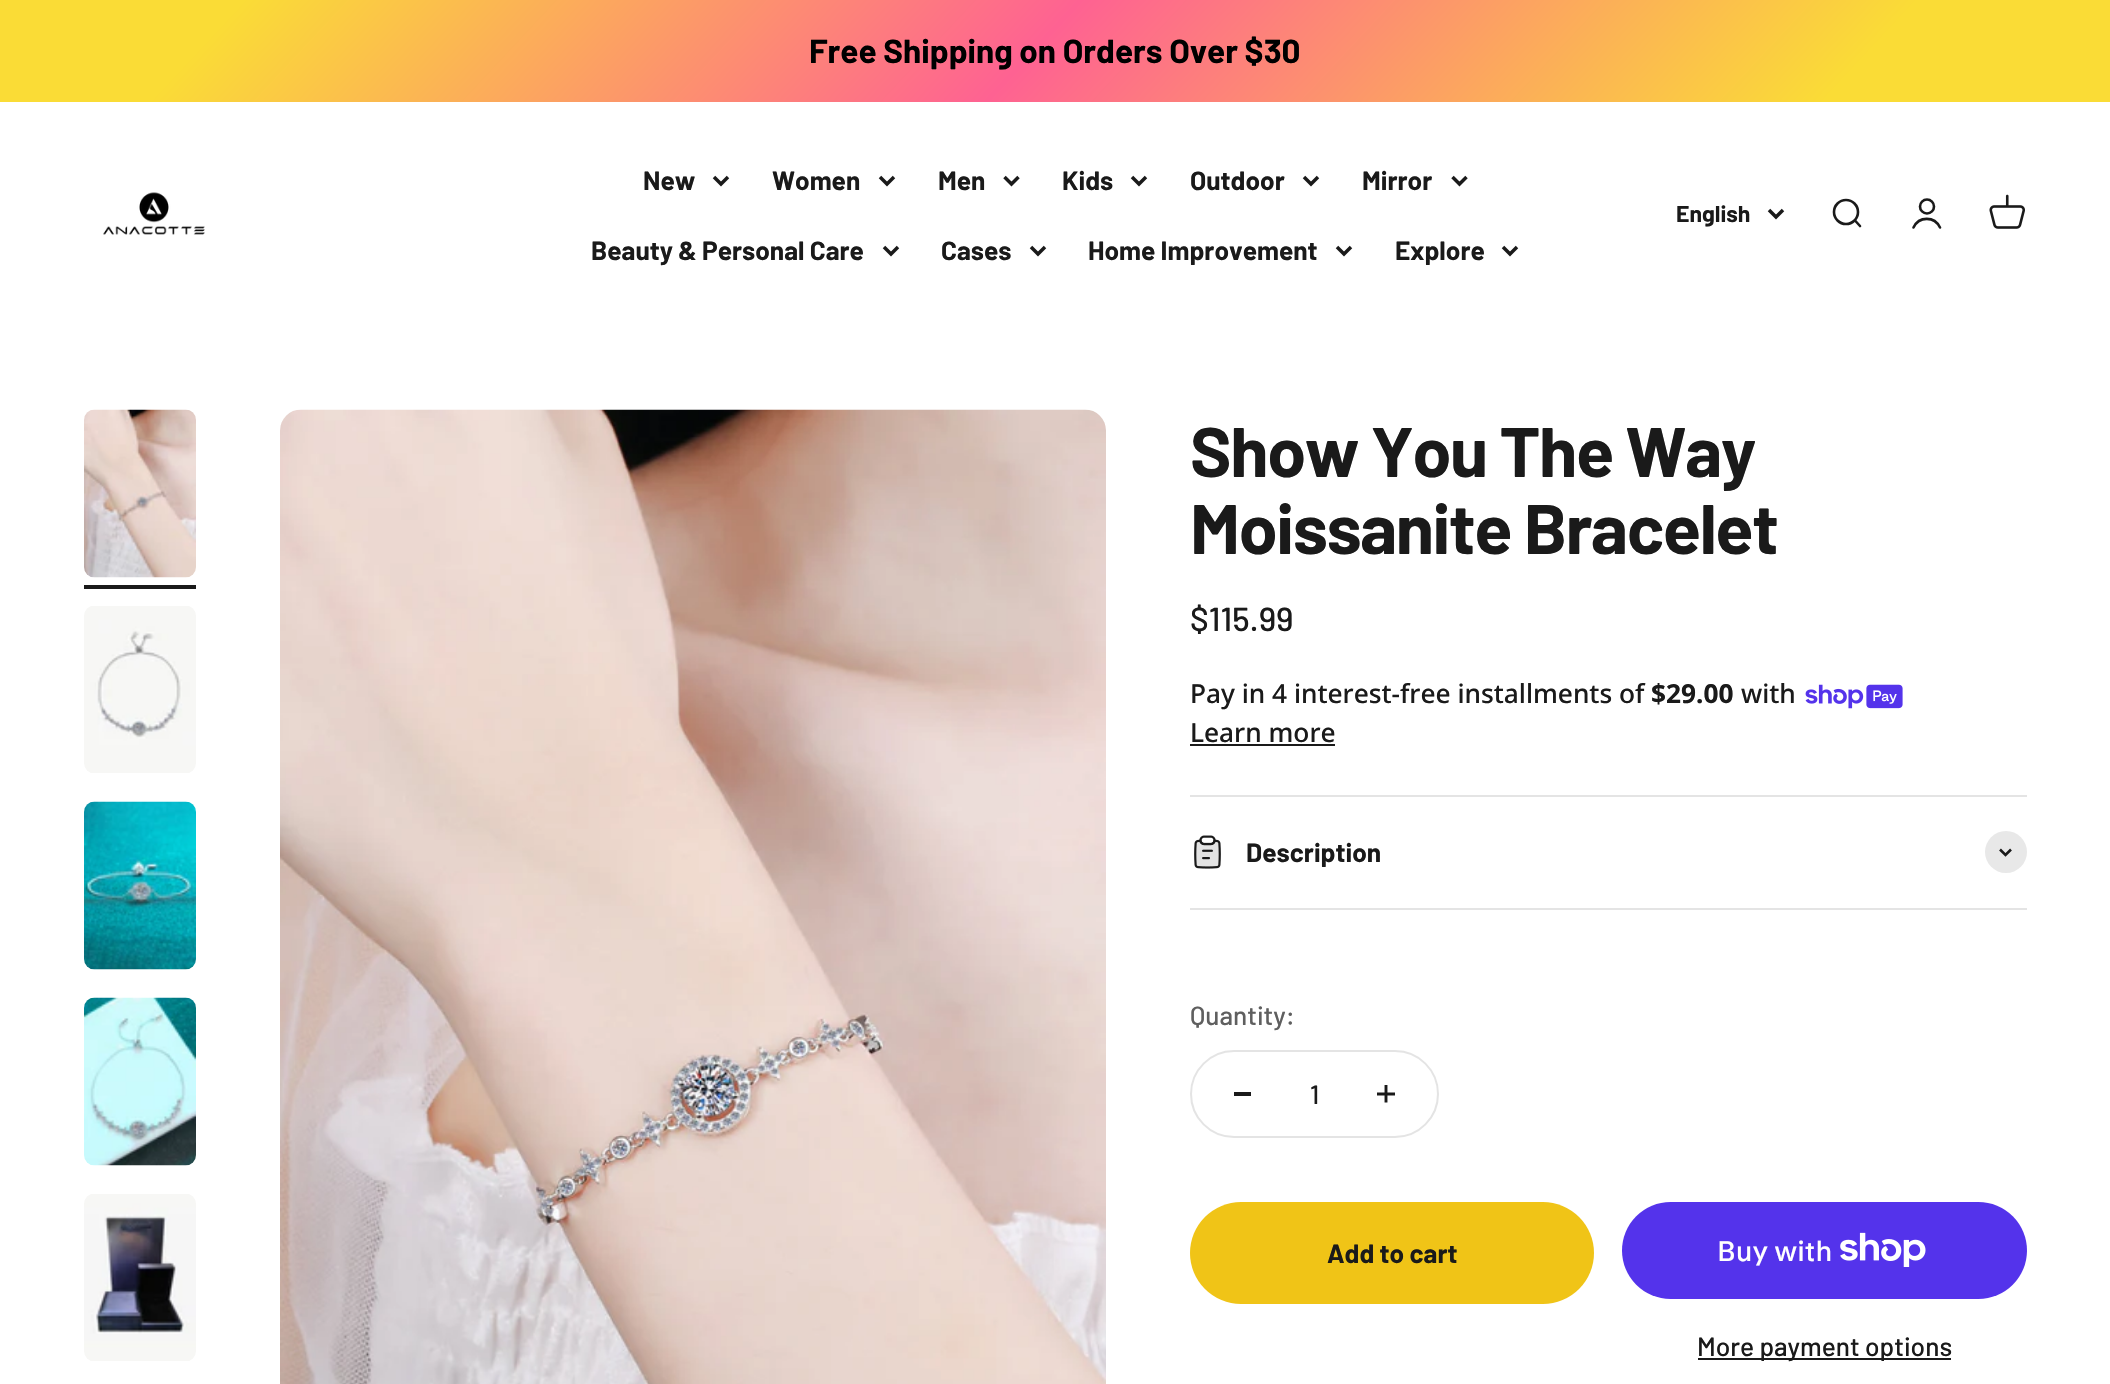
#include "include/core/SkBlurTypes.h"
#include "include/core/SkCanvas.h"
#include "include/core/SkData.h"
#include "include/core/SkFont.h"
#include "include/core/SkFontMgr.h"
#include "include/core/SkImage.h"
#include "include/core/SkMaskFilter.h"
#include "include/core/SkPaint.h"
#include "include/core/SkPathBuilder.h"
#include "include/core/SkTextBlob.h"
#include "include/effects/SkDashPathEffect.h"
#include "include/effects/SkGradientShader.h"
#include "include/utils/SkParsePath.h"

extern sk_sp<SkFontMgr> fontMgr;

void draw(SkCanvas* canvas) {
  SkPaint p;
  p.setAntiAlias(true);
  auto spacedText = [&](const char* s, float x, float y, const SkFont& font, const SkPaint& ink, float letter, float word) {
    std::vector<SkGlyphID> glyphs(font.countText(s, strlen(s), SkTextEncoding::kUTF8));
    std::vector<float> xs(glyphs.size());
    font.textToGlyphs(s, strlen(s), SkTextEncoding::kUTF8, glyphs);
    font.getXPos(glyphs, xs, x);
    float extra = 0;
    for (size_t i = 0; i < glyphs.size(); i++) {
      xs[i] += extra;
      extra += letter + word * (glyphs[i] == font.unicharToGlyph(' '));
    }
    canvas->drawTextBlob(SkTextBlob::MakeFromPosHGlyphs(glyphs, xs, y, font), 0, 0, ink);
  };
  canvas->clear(SK_ColorWHITE);
  {
    const SkColor colors[] = {SkColorSetRGB(250, 220, 54), SkColorSetRGB(254, 98, 146), SkColorSetRGB(250, 220, 54)};
    const float stops[] = {0.11f, 0.49f, 0.87f};
    const SkPoint ends[] = {{466, -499}, {1645, 601}};
    p.setShader(SkGradientShader::MakeLinear(ends, colors, stops, 3, SkTileMode::kClamp));
    p.setAlpha(255);
  }
  canvas->drawRect(SkRect::MakeLTRB(0, 0, 2110, 102), p);
  canvas->drawImageRect(SkImages::DeferredFromEncodedData(SkData::MakeFromFileName("images/1.png")), SkRect::MakeLTRB(103, 192, 205, 235), SkSamplingOptions());
  p.setStyle(SkPaint::kStroke_Style);
  p.setStrokeWidth(3.5f);
  p.setShader(nullptr);
  p.setColor(SkColorSetRGB(26, 26, 26));
  canvas->drawPath(SkPathBuilder().moveTo(714, 177).lineTo(721, 184).lineTo(728, 177).detach(), p);
  canvas->drawPath(SkPathBuilder().moveTo(880, 177).lineTo(887, 184).lineTo(894, 177).detach(), p);
  canvas->drawPath(SkPathBuilder().moveTo(1004.5f, 177).lineTo(1011.5f, 184).lineTo(1018.5f, 177).detach(), p);
  canvas->drawPath(SkPathBuilder().moveTo(1132, 177).lineTo(1139, 184).lineTo(1146, 177).detach(), p);
  canvas->drawPath(SkPathBuilder().moveTo(1304, 177).lineTo(1311, 184).lineTo(1318, 177).detach(), p);
  canvas->drawPath(SkPathBuilder().moveTo(1452.5f, 177).lineTo(1459.5f, 184).lineTo(1466.5f, 177).detach(), p);
  canvas->drawPath(SkPathBuilder().moveTo(884, 247).lineTo(891, 254).lineTo(898, 247).detach(), p);
  canvas->drawPath(SkPathBuilder().moveTo(1031, 247).lineTo(1038, 254).lineTo(1045, 247).detach(), p);
  canvas->drawPath(SkPathBuilder().moveTo(1337, 247).lineTo(1344, 254).lineTo(1351, 247).detach(), p);
  canvas->drawPath(SkPathBuilder().moveTo(1503, 247).lineTo(1510, 254).lineTo(1517, 247).detach(), p);
  canvas->drawPath(SkPathBuilder().moveTo(1769, 210).lineTo(1776, 217).lineTo(1783, 210).detach(), p);
  p.setStrokeWidth(2.6f);
  canvas->drawCircle(1846, 212, 12, p);
  p.setStrokeCap(SkPaint::kRound_Cap);
  p.setStrokeJoin(SkPaint::kRound_Join);
  canvas->drawPath(SkPathBuilder().moveTo(1855, 220.5f).lineTo(1860, 226).detach(), p);
  p.setStrokeCap(SkPaint::kButt_Cap);
  p.setStrokeJoin(SkPaint::kMiter_Join);
  canvas->drawCircle(1927, 206.5f, 7, p);
  p.setStrokeCap(SkPaint::kRound_Cap);
  canvas->drawPath(SkPathBuilder().moveTo(1913.5f, 227.5f).cubicTo(1919, 216, 1934.5f, 216, 1940, 227.5f).detach(), p);
  canvas->drawImageRect(SkImages::DeferredFromEncodedData(SkData::MakeFromFileName("images/2.png")), SkRect::MakeLTRB(1989, 194, 2025, 229), SkSamplingOptions());
  canvas->drawImageRect(SkImages::DeferredFromEncodedData(SkData::MakeFromFileName("images/3.png")), SkRect::MakeLTRB(84, 409, 196, 578), SkSamplingOptions());
  p.setStyle(SkPaint::kFill_Style);
  canvas->drawRect(SkRect::MakeLTRB(84, 585, 196, 589), p);
  canvas->drawImageRect(SkImages::DeferredFromEncodedData(SkData::MakeFromFileName("images/4.png")), SkRect::MakeLTRB(84, 606, 196, 773), SkSamplingOptions());
  canvas->drawImageRect(SkImages::DeferredFromEncodedData(SkData::MakeFromFileName("images/5.png")), SkRect::MakeLTRB(84, 801, 196, 970), SkSamplingOptions());
  canvas->drawImageRect(SkImages::DeferredFromEncodedData(SkData::MakeFromFileName("images/6.png")), SkRect::MakeLTRB(84, 997, 196, 1166), SkSamplingOptions());
  canvas->drawImageRect(SkImages::DeferredFromEncodedData(SkData::MakeFromFileName("images/7.png")), SkRect::MakeLTRB(84, 1194, 196, 1361), SkSamplingOptions());
  canvas->drawImageRect(SkImages::DeferredFromEncodedData(SkData::MakeFromFileName("images/8.png")), SkRect::MakeLTRB(280, 409, 1106, 1384), SkSamplingOptions());
  canvas->drawImageRect(SkImages::DeferredFromEncodedData(SkData::MakeFromFileName("images/9.png")), SkRect::MakeLTRB(1805, 684, 1903, 709), SkSamplingOptions());
  canvas->drawRect(SkRect::MakeLTRB(1190, 744, 1335, 746), p);
  p.setColor(SkColorSetRGB(228, 228, 228));
  canvas->drawRect(SkRect::MakeLTRB(1190, 795, 2027, 797), p);
  canvas->drawRect(SkRect::MakeLTRB(1190, 908, 2027, 910), p);
  canvas->drawImageRect(SkImages::DeferredFromEncodedData(SkData::MakeFromFileName("images/10.png")), SkRect::MakeLTRB(1194, 835, 1221, 869), SkSamplingOptions());
  p.setColor(SkColorSetRGB(232, 232, 232));
  canvas->drawCircle(2006, 852, 21, p);
  p.setStyle(SkPaint::kStroke_Style);
  p.setStrokeCap(SkPaint::kButt_Cap);
  p.setColor(SkColorSetRGB(26, 26, 26));
  canvas->drawPath(SkPathBuilder().moveTo(2000, 849.5f).lineTo(2005.5f, 855).lineTo(2011, 849.5f).detach(), p);
  p.setStrokeWidth(2);
  p.setColor(SkColorSetRGB(228, 228, 228));
  canvas->drawRoundRect(SkRect::MakeLTRB(1191, 1051, 1438, 1137), 43, 43, p);
  p.setStyle(SkPaint::kFill_Style);
  p.setColor(SkColorSetRGB(26, 26, 26));
  canvas->drawRect(SkRect::MakeLTRB(1234, 1092, 1251, 1096), p);
  p.setStyle(SkPaint::kStroke_Style);
  p.setStrokeWidth(2.9f);
  canvas->drawPath(SkPathBuilder().moveTo(1386, 1085).lineTo(1386, 1102.5f).moveTo(1377, 1094).lineTo(1395, 1094).detach(), p);
  p.setStyle(SkPaint::kFill_Style);
  p.setColor(SkColorSetRGB(240, 196, 23));
  canvas->drawRoundRect(SkRect::MakeLTRB(1190, 1202, 1594, 1304), 51, 51, p);
  p.setColor(SkColorSetRGB(84, 51, 235));
  canvas->drawRoundRect(SkRect::MakeLTRB(1622, 1202, 2027, 1299), 48.5f, 48.5f, p);
  canvas->drawImageRect(SkImages::DeferredFromEncodedData(SkData::MakeFromFileName("images/11.png")), SkRect::MakeLTRB(1840, 1232, 1926, 1267), SkSamplingOptions());
  p.setColor(SkColorSetRGB(26, 26, 26));
  canvas->drawRect(SkRect::MakeLTRB(1698, 1358, 1951, 1360), p);
  SkFont font1(fontMgr->matchFamilyStyle("Barlow", SkFontStyle::Bold()), 33.25f);
  font1.setSubpixel(true);
  p.setColor(SK_ColorBLACK);
  canvas->drawString("Free Shipping on Orders Over $30", 809, 63, font1, p);
  SkFont font2(fontMgr->matchFamilyStyle("Barlow", SkFontStyle::Bold()), 26.25f);
  font2.setSubpixel(true);
  p.setColor(SkColorSetRGB(26, 26, 26));
  canvas->drawString("New", 643, 190, font2, p);
  canvas->drawString("Women", 772, 190, font2, p);
  canvas->drawString("Men", 938, 190, font2, p);
  canvas->drawString("Kids", 1062, 190, font2, p);
  canvas->drawString("Outdoor", 1190, 190, font2, p);
  canvas->drawString("Mirror", 1362, 190, font2, p);
  canvas->drawString("Beauty & Personal Care", 591, 260, font2, p);
  canvas->drawString("Cases", 941, 260, font2, p);
  canvas->drawString("Home Improvement", 1088, 260, font2, p);
  canvas->drawString("Explore", 1395, 260, font2, p);
  SkFont font3(fontMgr->matchFamilyStyle("Barlow", SkFontStyle::Bold()), 23);
  font3.setSubpixel(true);
  canvas->drawString("English", 1676, 222, font3, p);
  SkFont font4(fontMgr->matchFamilyStyle("Barlow", SkFontStyle::Bold()), 70);
  font4.setSubpixel(true);
  spacedText("Show You The Way", 1190, 477, font4, p, -1.4f, 0);
  spacedText("Moissanite Bracelet", 1190, 554, font4, p, -1.4f, 0);
  SkFont font5(fontMgr->matchFamilyStyle("Barlow", SkFontStyle(500, SkFontStyle::kNormal_Width, SkFontStyle::kUpright_Slant)), 33.25f);
  font5.setSubpixel(true);
  canvas->drawString("$115.99", 1190, 631, font5, p);
  SkFont font6(fontMgr->matchFamilyStyle("Noto Sans", SkFontStyle(500, SkFontStyle::kNormal_Width, SkFontStyle::kUpright_Slant)), 26.25f);
  font6.setSubpixel(true);
  canvas->drawString("Pay in 4 interest-free installments of", 1190, 703, font6, p);
  SkFont font7(fontMgr->matchFamilyStyle("Noto Sans", SkFontStyle::Bold()), 26.25f);
  font7.setSubpixel(true);
  canvas->drawString("$29.00", 1651, 703, font7, p);
  canvas->drawString("with", 1741, 703, font6, p);
  canvas->drawString("Learn more", 1190, 742, font6, p);
  canvas->drawString("Description", 1246, 862, font2, p);
  SkFont font8(fontMgr->matchFamilyStyle("Barlow", SkFontStyle(500, SkFontStyle::kNormal_Width, SkFontStyle::kUpright_Slant)), 26.25f);
  font8.setSubpixel(true);
  p.setColor(SkColorSetRGB(95, 95, 95));
  canvas->drawString("Quantity:", 1190, 1025, font8, p);
  p.setColor(SkColorSetRGB(26, 26, 26));
  canvas->drawString("1", 1310, 1104, font8, p);
  canvas->drawString("Add to cart", 1327, 1263, font2, p);
  SkFont font9(fontMgr->matchFamilyStyle("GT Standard", SkFontStyle(500, SkFontStyle::kNormal_Width, SkFontStyle::kUpright_Slant)), 28);
  font9.setSubpixel(true);
  p.setColor(SK_ColorWHITE);
  canvas->drawString("Buy with", 1717, 1261, font9, p);
  p.setColor(SkColorSetRGB(26, 26, 26));
  canvas->drawString("More payment options", 1697, 1356, font8, p);
}
